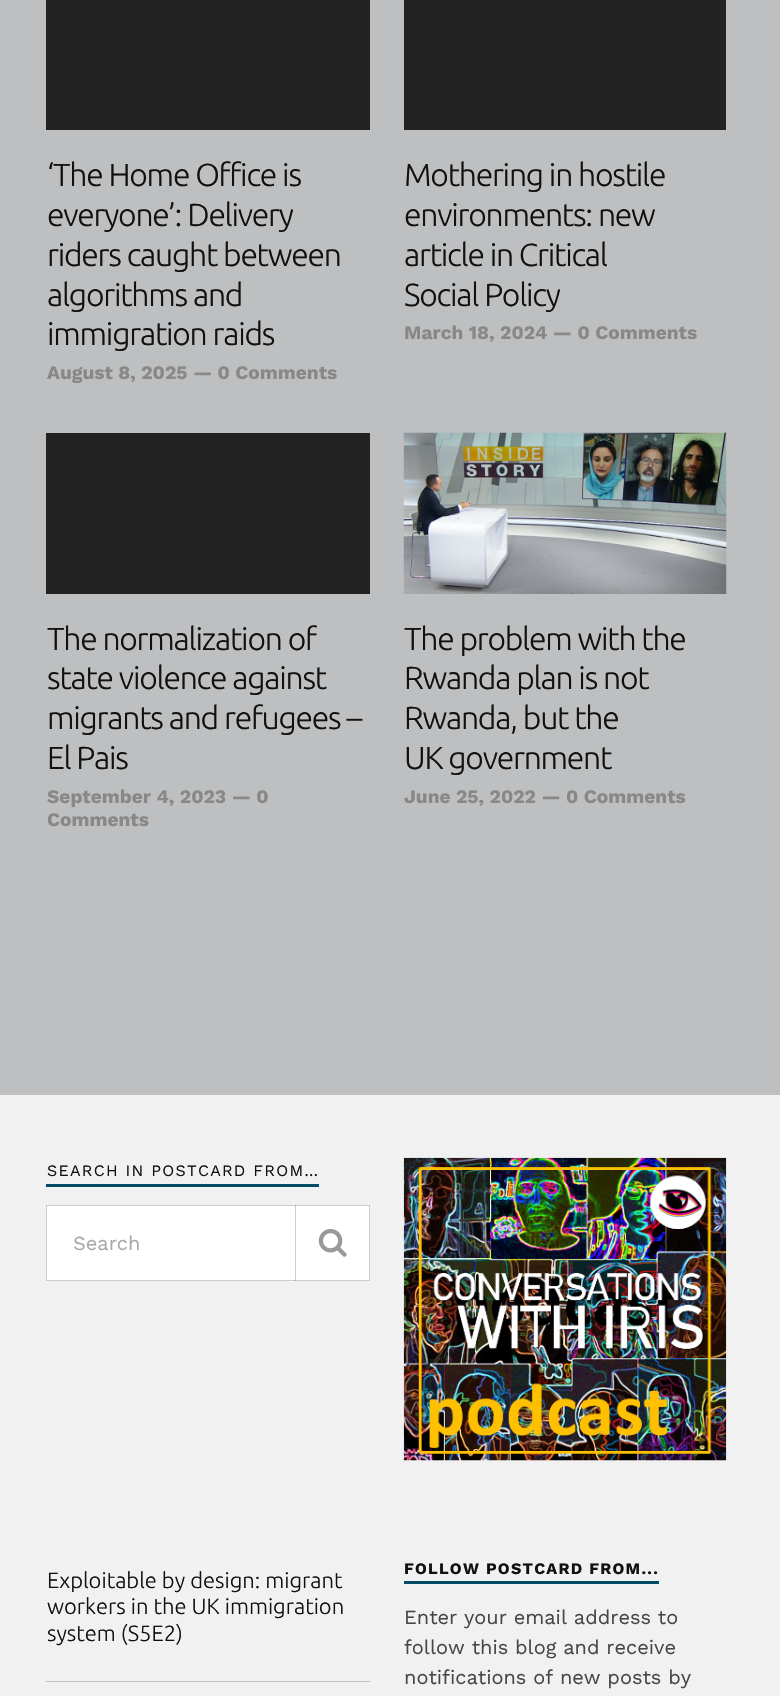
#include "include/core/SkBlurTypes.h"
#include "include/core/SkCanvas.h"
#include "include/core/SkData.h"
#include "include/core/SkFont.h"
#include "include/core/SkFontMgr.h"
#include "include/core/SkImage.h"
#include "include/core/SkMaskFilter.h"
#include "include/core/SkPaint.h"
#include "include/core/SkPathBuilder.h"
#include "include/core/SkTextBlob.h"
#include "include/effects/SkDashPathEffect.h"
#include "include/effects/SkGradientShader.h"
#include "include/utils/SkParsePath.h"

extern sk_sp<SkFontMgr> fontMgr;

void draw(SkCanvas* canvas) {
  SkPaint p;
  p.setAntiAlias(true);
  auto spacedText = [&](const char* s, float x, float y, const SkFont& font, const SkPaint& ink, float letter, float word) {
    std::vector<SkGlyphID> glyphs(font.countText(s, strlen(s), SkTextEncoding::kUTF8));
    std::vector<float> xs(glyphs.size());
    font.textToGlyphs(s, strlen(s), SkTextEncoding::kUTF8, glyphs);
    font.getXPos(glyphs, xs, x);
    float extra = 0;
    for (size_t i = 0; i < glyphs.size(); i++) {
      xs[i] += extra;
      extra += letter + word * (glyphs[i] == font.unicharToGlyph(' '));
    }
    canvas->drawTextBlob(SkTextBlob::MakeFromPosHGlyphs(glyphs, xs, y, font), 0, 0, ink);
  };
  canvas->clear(SkColorSetRGB(189, 191, 192));
  p.setColor(SkColorSetRGB(34, 34, 34));
  canvas->drawRect(SkRect::MakeLTRB(46, 0, 370, 130), p);
  canvas->drawRect(SkRect::MakeLTRB(404, 0, 726, 130), p);
  canvas->drawRect(SkRect::MakeLTRB(46, 433, 370, 594), p);
  canvas->drawImageRect(SkImages::DeferredFromEncodedData(SkData::MakeFromFileName("images/1.png")), SkRect::MakeLTRB(403, 432, 727, 594), SkSamplingOptions());
  p.setColor(SkColorSetRGB(241, 241, 241));
  canvas->drawRect(SkRect::MakeLTRB(0, 1095, 780, 1696), p);
  p.setColor(SkColorSetRGB(193, 193, 193));
  canvas->drawRect(SkRect::MakeLTRB(0, 1094, 780, 1095), p);
  p.setColor(SkColorSetRGB(0, 76, 102));
  canvas->drawRect(SkRect::MakeLTRB(46, 1184, 319, 1187), p);
  p.setColor(SK_ColorWHITE);
  canvas->drawRect(SkRect::MakeLTRB(46.5f, 1205.5f, 369.5f, 1280.5f), p);
  p.setStyle(SkPaint::kStroke_Style);
  p.setStrokeWidth(1);
  p.setColor(SkColorSetRGB(204, 204, 204));
  canvas->drawRect(SkRect::MakeLTRB(46.5f, 1205.5f, 369.5f, 1280.5f), p);
  p.setStyle(SkPaint::kFill_Style);
  p.setColor(SkColorSetARGB(51, 0, 0, 0));
  canvas->drawRect(SkRect::MakeLTRB(295, 1205, 296, 1281), p);
  canvas->drawImageRect(SkImages::DeferredFromEncodedData(SkData::MakeFromFileName("images/2.png")), SkRect::MakeLTRB(318, 1228, 347, 1257), SkSamplingOptions());
  canvas->drawImageRect(SkImages::DeferredFromEncodedData(SkData::MakeFromFileName("images/3.png")), SkRect::MakeLTRB(403, 1157, 727, 1461), SkSamplingOptions());
  p.setColor(SkColorSetRGB(193, 193, 193));
  canvas->drawRect(SkRect::MakeLTRB(46, 1681, 370, 1682), p);
  p.setColor(SkColorSetRGB(0, 76, 102));
  canvas->drawRect(SkRect::MakeLTRB(404, 1581, 659, 1584), p);
  SkFont font1(fontMgr->matchFamilyStyle("Ubuntu", SkFontStyle(300, SkFontStyle::kNormal_Width, SkFontStyle::kUpright_Slant)), 31.9f);
  font1.setSubpixel(true);
  p.setColor(SkColorSetRGB(17, 17, 17));
  spacedText("‘The Home Office is", 47, 186, font1, p, -1.25f, 0);
  spacedText("everyone’: Delivery", 47, 226, font1, p, -1.25f, 0);
  spacedText("riders caught between", 47, 266, font1, p, -1.25f, 0);
  spacedText("algorithms and", 47, 306, font1, p, -1.25f, 0);
  spacedText("immigration raids", 47, 345, font1, p, -1.25f, 0);
  SkFont font2(fontMgr->matchFamilyStyle("Work Sans", SkFontStyle::Bold()), 19.1f);
  font2.setSubpixel(true);
  p.setColor(SkColorSetRGB(136, 136, 136));
  canvas->drawString("August 8, 2025 — 0 Comments", 47, 379, font2, p);
  p.setColor(SkColorSetRGB(17, 17, 17));
  spacedText("Mothering in hostile", 404, 186, font1, p, -1.25f, 0);
  spacedText("environments: new", 404, 226, font1, p, -1.25f, 0);
  spacedText("article in Critical", 404, 266, font1, p, -1.25f, 0);
  spacedText("Social Policy", 404, 306, font1, p, -1.25f, 0);
  p.setColor(SkColorSetRGB(136, 136, 136));
  canvas->drawString("March 18, 2024 — 0 Comments", 404, 339, font2, p);
  p.setColor(SkColorSetRGB(17, 17, 17));
  spacedText("The normalization of", 47, 650, font1, p, -1.25f, 0);
  spacedText("state violence against", 47, 689, font1, p, -1.25f, 0);
  spacedText("migrants and refugees –", 47, 729, font1, p, -1.25f, 0);
  spacedText("El Pais", 47, 769, font1, p, -1.25f, 0);
  p.setColor(SkColorSetRGB(136, 136, 136));
  canvas->drawString("September 4, 2023 — 0", 47, 803, font2, p);
  canvas->drawString("Comments", 47, 826, font2, p);
  p.setColor(SkColorSetRGB(17, 17, 17));
  spacedText("The problem with the", 404, 650, font1, p, -1.25f, 0);
  spacedText("Rwanda plan is not", 404, 689, font1, p, -1.25f, 0);
  spacedText("Rwanda, but the", 404, 729, font1, p, -1.25f, 0);
  spacedText("UK government", 404, 769, font1, p, -1.25f, 0);
  p.setColor(SkColorSetRGB(136, 136, 136));
  canvas->drawString("June 25, 2022 — 0 Comments", 404, 803, font2, p);
  SkFont font3(fontMgr->matchFamilyStyle("Work Sans", SkFontStyle::Normal()), 16);
  font3.setSubpixel(true);
  p.setColor(SkColorSetRGB(17, 17, 17));
  spacedText("SEARCH IN POSTCARD FROM…", 47, 1176, font3, p, 1.25f, 0);
  SkFont font4(fontMgr->matchFamilyStyle("Work Sans", SkFontStyle::Normal()), 20);
  font4.setSubpixel(true);
  p.setColor(SkColorSetRGB(169, 169, 169));
  canvas->drawString("Search", 73, 1250, font4, p);
  SkFont font5(fontMgr->matchFamilyStyle("Ubuntu", SkFontStyle(300, SkFontStyle::kNormal_Width, SkFontStyle::kUpright_Slant)), 22);
  font5.setSubpixel(true);
  p.setColor(SkColorSetRGB(17, 17, 17));
  canvas->drawString("Exploitable by design: migrant", 47, 1588, font5, p);
  canvas->drawString("workers in the UK immigration", 47, 1614, font5, p);
  canvas->drawString("system (S5E2)", 47, 1641, font5, p);
  SkFont font6(fontMgr->matchFamilyStyle("Work Sans", SkFontStyle::Bold()), 16);
  font6.setSubpixel(true);
  spacedText("FOLLOW POSTCARD FROM...", 404, 1574, font6, p, 1.25f, 0);
  p.setColor(SkColorSetRGB(71, 71, 71));
  canvas->drawString("Enter your email address to", 404, 1624, font4, p);
  canvas->drawString("follow this blog and receive", 404, 1654, font4, p);
  canvas->drawString("notifications of new posts by", 404, 1684, font4, p);
}
